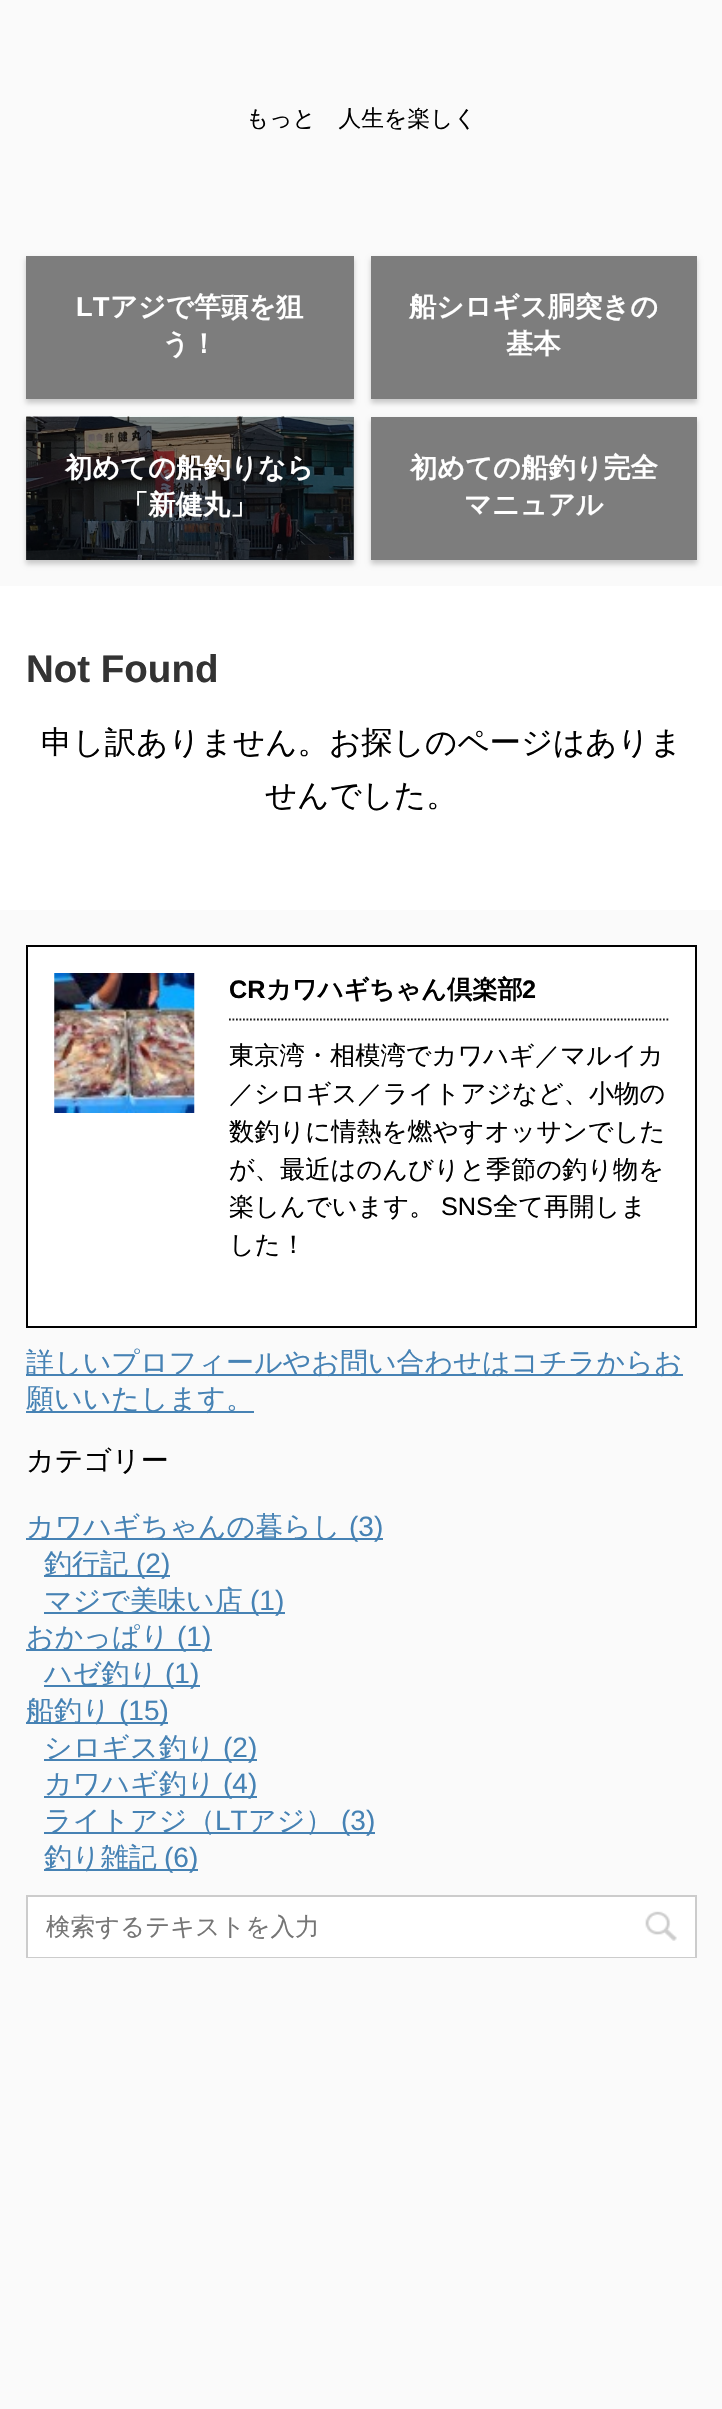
#include "include/core/SkBlurTypes.h"
#include "include/core/SkCanvas.h"
#include "include/core/SkData.h"
#include "include/core/SkFont.h"
#include "include/core/SkFontMgr.h"
#include "include/core/SkImage.h"
#include "include/core/SkMaskFilter.h"
#include "include/core/SkPaint.h"
#include "include/core/SkPathBuilder.h"
#include "include/core/SkTextBlob.h"
#include "include/effects/SkDashPathEffect.h"
#include "include/effects/SkGradientShader.h"
#include "include/utils/SkParsePath.h"

extern sk_sp<SkFontMgr> fontMgr;

void draw(SkCanvas* canvas) {
  SkPaint p;
  p.setAntiAlias(true);
  canvas->clear(SkColorSetRGB(250, 250, 250));
  canvas->save();
  canvas->clipPath(SkPathBuilder(SkPathFillType::kEvenOdd).moveTo(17, 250).lineTo(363, 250).lineTo(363, 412).lineTo(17, 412).close().moveTo(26, 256).lineTo(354, 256).lineTo(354, 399).lineTo(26, 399).close().detach(), true);
  p.setColor(SkColorSetARGB(51, 0, 0, 0));
  p.setMaskFilter(SkMaskFilter::MakeBlur(kNormal_SkBlurStyle, 2.5f));
  canvas->drawRect(SkRect::MakeLTRB(26, 259, 354, 403), p);
  p.setMaskFilter(nullptr);
  canvas->restore();
  p.setColor(SkColorSetARGB(128, 0, 0, 0));
  canvas->drawRect(SkRect::MakeLTRB(26, 256, 354, 399), p);
  canvas->save();
  canvas->clipPath(SkPathBuilder(SkPathFillType::kEvenOdd).moveTo(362, 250).lineTo(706, 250).lineTo(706, 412).lineTo(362, 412).close().moveTo(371, 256).lineTo(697, 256).lineTo(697, 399).lineTo(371, 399).close().detach(), true);
  p.setColor(SkColorSetARGB(51, 0, 0, 0));
  p.setMaskFilter(SkMaskFilter::MakeBlur(kNormal_SkBlurStyle, 2.5f));
  canvas->drawRect(SkRect::MakeLTRB(371, 259, 697, 403), p);
  p.setMaskFilter(nullptr);
  canvas->restore();
  p.setColor(SkColorSetARGB(128, 0, 0, 0));
  canvas->drawRect(SkRect::MakeLTRB(371, 256, 697, 399), p);
  p.setColor(SkColorSetARGB(51, 0, 0, 0));
  p.setMaskFilter(SkMaskFilter::MakeBlur(kNormal_SkBlurStyle, 2.5f));
  canvas->drawRect(SkRect::MakeLTRB(26, 420, 354, 564), p);
  p.setMaskFilter(nullptr);
  canvas->drawImageRect(SkImages::DeferredFromEncodedData(SkData::MakeFromFileName("images/1.png")), SkRect::MakeLTRB(26, 416, 354, 560), SkSamplingOptions());
  p.setColor(SkColorSetARGB(128, 0, 0, 0));
  canvas->drawRect(SkRect::MakeLTRB(26, 417, 354, 560), p);
  canvas->save();
  canvas->clipPath(SkPathBuilder(SkPathFillType::kEvenOdd).moveTo(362, 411).lineTo(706, 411).lineTo(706, 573).lineTo(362, 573).close().moveTo(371, 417).lineTo(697, 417).lineTo(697, 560).lineTo(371, 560).close().detach(), true);
  p.setColor(SkColorSetARGB(51, 0, 0, 0));
  p.setMaskFilter(SkMaskFilter::MakeBlur(kNormal_SkBlurStyle, 2.5f));
  canvas->drawRect(SkRect::MakeLTRB(371, 420, 697, 564), p);
  p.setMaskFilter(nullptr);
  canvas->restore();
  p.setColor(SkColorSetARGB(128, 0, 0, 0));
  canvas->drawRect(SkRect::MakeLTRB(371, 417, 697, 560), p);
  p.setColor(SK_ColorWHITE);
  canvas->drawRect(SkRect::MakeLTRB(0, 586, 722, 910), p);
  canvas->drawRect(SkRect::MakeLTRB(27, 946, 696, 1327), p);
  p.setStyle(SkPaint::kStroke_Style);
  p.setStrokeWidth(2);
  p.setColor(SK_ColorBLACK);
  canvas->drawRect(SkRect::MakeLTRB(27, 946, 696, 1327), p);
  canvas->drawImageRect(SkImages::DeferredFromEncodedData(SkData::MakeFromFileName("images/2.png")), SkRect::MakeLTRB(54, 973, 195, 1113), SkSamplingOptions());
  p.setStrokeWidth(1.8f);
  p.setColor(SkColorSetRGB(26, 26, 26));
  p.setPathEffect(SkDashPathEffect::Make({{1.75f, 1.75f}}, 0));
  canvas->drawPath(SkPathBuilder().moveTo(229, 1019.5f).lineTo(668.5f, 1019.5f).detach(), p);
  p.setPathEffect(nullptr);
  p.setStyle(SkPaint::kFill_Style);
  p.setColor(SkColorSetRGB(70, 130, 180));
  canvas->drawRect(SkRect::MakeLTRB(26, 1374, 683, 1376), p);
  canvas->drawRect(SkRect::MakeLTRB(26, 1411, 254, 1413), p);
  canvas->drawRect(SkRect::MakeLTRB(26, 1538, 383, 1540), p);
  canvas->drawRect(SkRect::MakeLTRB(44, 1575, 170, 1577), p);
  canvas->drawRect(SkRect::MakeLTRB(44, 1612, 285, 1614), p);
  canvas->drawRect(SkRect::MakeLTRB(26, 1649, 212, 1651), p);
  canvas->drawRect(SkRect::MakeLTRB(44, 1685, 200, 1687), p);
  canvas->drawRect(SkRect::MakeLTRB(26, 1722, 168, 1724), p);
  canvas->drawRect(SkRect::MakeLTRB(44, 1759, 257, 1761), p);
  canvas->drawRect(SkRect::MakeLTRB(44, 1796, 257, 1798), p);
  canvas->drawRect(SkRect::MakeLTRB(44, 1832, 375, 1834), p);
  canvas->drawRect(SkRect::MakeLTRB(44, 1869, 198, 1871), p);
  p.setStyle(SkPaint::kStroke_Style);
  p.setStrokeWidth(2);
  p.setColor(SkColorSetRGB(204, 204, 204));
  canvas->drawRect(SkRect::MakeLTRB(27, 1896, 696, 1957), p);
  p.setStyle(SkPaint::kFill_Style);
  p.setColor(SK_ColorWHITE);
  canvas->drawRect(SkRect::MakeLTRB(28, 1897, 695, 1957), p);
  canvas->drawImageRect(SkImages::DeferredFromEncodedData(SkData::MakeFromFileName("images/3.png")), SkRect::MakeLTRB(645, 1911, 677, 1941), SkSamplingOptions());
  SkFont font1(fontMgr->matchFamilyStyle("WenQuanYi Zen Hei", SkFontStyle(500, SkFontStyle::kNormal_Width, SkFontStyle::kUpright_Slant)), 22.75f);
  font1.setSubpixel(true);
  p.setColor(SK_ColorBLACK);
  canvas->drawString("もっと　人生を楽しく", 246, 126, font1, p);
  SkFont font2(fontMgr->matchFamilyStyle("Liberation Sans", SkFontStyle::Bold()), 27.25f);
  font2.setSubpixel(true);
  p.setColor(SK_ColorWHITE);
  canvas->drawString("LT", 76, 316, font2, p);
  SkFont font3(fontMgr->matchFamilyStyle("WenQuanYi Zen Hei", SkFontStyle::Bold()), 27.25f);
  font3.setSubpixel(true);
  canvas->drawString("アジで竿頭を狙", 110, 316, font3, p);
  canvas->drawString("う！", 162, 353, font3, p);
  canvas->drawString("船シロギス胴突きの", 409, 316, font3, p);
  canvas->drawString("基本", 506, 353, font3, p);
  canvas->drawString("初めての船釣りなら", 65, 477, font3, p);
  canvas->drawString("「新健丸」", 121, 514, font3, p);
  canvas->drawString("初めての船釣り完全", 410, 477, font3, p);
  canvas->drawString("マニュアル", 464, 514, font3, p);
  SkFont font4(fontMgr->matchFamilyStyle("Liberation Sans", SkFontStyle::Bold()), 38.5f);
  font4.setSubpixel(true);
  p.setColor(SkColorSetRGB(51, 51, 51));
  canvas->drawString("Not Found", 26, 682, font4, p);
  SkFont font5(fontMgr->matchFamilyStyle("WenQuanYi Zen Hei", SkFontStyle(500, SkFontStyle::kNormal_Width, SkFontStyle::kUpright_Slant)), 31.5f);
  font5.setSubpixel(true);
  p.setColor(SK_ColorBLACK);
  canvas->drawString("申し訳ありません。お探しのページはありま", 41, 753, font5, p);
  canvas->drawString("せんでした。", 265, 806, font5, p);
  SkFont font6(fontMgr->matchFamilyStyle("Liberation Sans", SkFontStyle::Bold()), 25.25f);
  font6.setSubpixel(true);
  canvas->drawString("CR", 229, 998, font6, p);
  SkFont font7(fontMgr->matchFamilyStyle("WenQuanYi Zen Hei", SkFontStyle::Bold()), 25.25f);
  font7.setSubpixel(true);
  canvas->drawString("カワハギちゃん倶楽部", 266, 998, font7, p);
  canvas->drawString("2", 522, 998, font6, p);
  SkFont font8(fontMgr->matchFamilyStyle("WenQuanYi Zen Hei", SkFontStyle(500, SkFontStyle::kNormal_Width, SkFontStyle::kUpright_Slant)), 25.25f);
  font8.setSubpixel(true);
  canvas->drawString("東京湾・相模湾でカワハギ／マルイカ", 229, 1064, font8, p);
  canvas->drawString("／シロギス／ライトアジなど、小物の", 229, 1102, font8, p);
  canvas->drawString("数釣りに情熱を燃やすオッサンでした", 229, 1140, font8, p);
  canvas->drawString("が、最近はのんびりと季節の釣り物を", 229, 1178, font8, p);
  canvas->drawString("楽しんでいます。", 229, 1215, font8, p);
  SkFont font9(fontMgr->matchFamilyStyle("Liberation Sans", SkFontStyle::Normal()), 25.25f);
  font9.setSubpixel(true);
  canvas->drawString("SNS", 441, 1215, font9, p);
  canvas->drawString("全て再開しま", 493, 1215, font8, p);
  canvas->drawString("した！", 229, 1253, font8, p);
  SkFont font10(fontMgr->matchFamilyStyle("WenQuanYi Zen Hei", SkFontStyle(500, SkFontStyle::kNormal_Width, SkFontStyle::kUpright_Slant)), 28);
  font10.setSubpixel(true);
  p.setColor(SkColorSetRGB(70, 130, 180));
  canvas->drawString("詳しいプロフィールやお問い合わせはコチラからお", 26, 1372, font10, p);
  canvas->drawString("願いいたします。", 26, 1408, font10, p);
  p.setColor(SK_ColorBLACK);
  canvas->drawString("カテゴリー", 26, 1470, font10, p);
  p.setColor(SkColorSetRGB(70, 130, 180));
  canvas->drawString("カワハギちゃんの暮らし", 26, 1536, font10, p);
  SkFont font11(fontMgr->matchFamilyStyle("Liberation Sans", SkFontStyle::Normal()), 28);
  font11.setSubpixel(true);
  canvas->drawString("(3)", 349, 1536, font11, p);
  canvas->drawString("釣行記", 44, 1573, font10, p);
  canvas->drawString("(2)", 136, 1573, font11, p);
  canvas->drawString("マジで美味い店", 44, 1610, font10, p);
  canvas->drawString("(1)", 250, 1610, font11, p);
  canvas->drawString("おかっぱり", 26, 1646, font10, p);
  canvas->drawString("(1)", 177, 1646, font11, p);
  canvas->drawString("ハゼ釣り", 44, 1683, font10, p);
  canvas->drawString("(1)", 165, 1683, font11, p);
  canvas->drawString("船釣り", 26, 1720, font10, p);
  canvas->drawString("(15)", 119, 1720, font11, p);
  canvas->drawString("シロギス釣り", 44, 1757, font10, p);
  canvas->drawString("(2)", 223, 1757, font11, p);
  canvas->drawString("カワハギ釣り", 44, 1793, font10, p);
  canvas->drawString("(4)", 223, 1793, font11, p);
  canvas->drawString("ライトアジ（", 44, 1830, font10, p);
  canvas->drawString("LT", 215, 1830, font11, p);
  canvas->drawString("アジ）", 248, 1830, font10, p);
  canvas->drawString("(3)", 341, 1830, font11, p);
  canvas->drawString("釣り雑記", 44, 1867, font10, p);
  canvas->drawString("(6)", 164, 1867, font11, p);
  SkFont font12(fontMgr->matchFamilyStyle("WenQuanYi Zen Hei", SkFontStyle(500, SkFontStyle::kNormal_Width, SkFontStyle::kUpright_Slant)), 24.5f);
  font12.setSubpixel(true);
  p.setColor(SkColorSetRGB(117, 117, 117));
  canvas->drawString("検索するテキストを入力", 46, 1935, font12, p);
}
